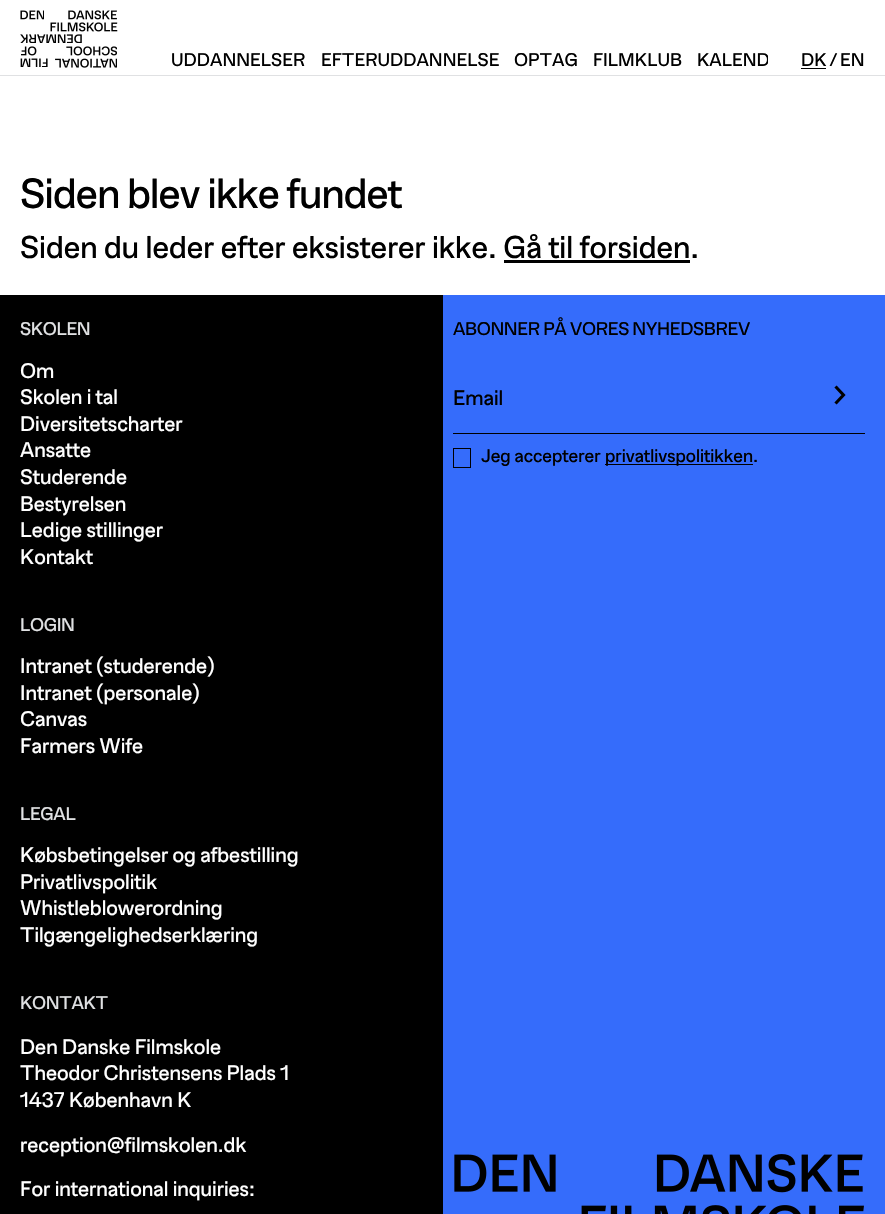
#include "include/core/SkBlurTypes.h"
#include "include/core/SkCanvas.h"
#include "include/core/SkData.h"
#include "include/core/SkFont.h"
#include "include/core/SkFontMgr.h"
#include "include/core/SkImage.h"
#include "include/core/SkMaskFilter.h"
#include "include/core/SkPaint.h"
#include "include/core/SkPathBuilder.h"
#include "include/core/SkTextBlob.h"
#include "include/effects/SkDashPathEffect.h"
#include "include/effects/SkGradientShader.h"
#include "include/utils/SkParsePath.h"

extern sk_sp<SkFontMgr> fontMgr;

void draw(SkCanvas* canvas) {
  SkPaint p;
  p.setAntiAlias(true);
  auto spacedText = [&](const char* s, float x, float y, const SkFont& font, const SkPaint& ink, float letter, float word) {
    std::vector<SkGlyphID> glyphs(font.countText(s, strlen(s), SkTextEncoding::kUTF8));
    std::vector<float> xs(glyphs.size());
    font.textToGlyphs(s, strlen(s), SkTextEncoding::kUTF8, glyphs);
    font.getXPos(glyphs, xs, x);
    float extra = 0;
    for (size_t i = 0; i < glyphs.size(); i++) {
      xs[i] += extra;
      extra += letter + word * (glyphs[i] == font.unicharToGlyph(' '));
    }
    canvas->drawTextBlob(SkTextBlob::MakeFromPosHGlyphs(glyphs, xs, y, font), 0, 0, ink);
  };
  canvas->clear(SK_ColorWHITE);
  p.setColor(SkColorSetRGB(224, 225, 227));
  canvas->drawRect(SkRect::MakeLTRB(0, 75, 885, 76), p);
  canvas->drawImageRect(SkImages::DeferredFromEncodedData(SkData::MakeFromFileName("images/1.png")), SkRect::MakeLTRB(20, 10, 118, 68), SkSamplingOptions());
  p.setColor(SK_ColorBLACK);
  canvas->drawRect(SkRect::MakeLTRB(801, 68, 826, 69), p);
  canvas->drawRect(SkRect::MakeLTRB(504, 260, 690, 263), p);
  canvas->drawRect(SkRect::MakeLTRB(0, 295, 443, 1214), p);
  p.setColor(SkColorSetRGB(53, 108, 251));
  canvas->drawRect(SkRect::MakeLTRB(443, 295, 875, 1214), p);
  p.setColor(SK_ColorBLACK);
  canvas->drawRect(SkRect::MakeLTRB(453, 433, 865, 434), p);
  p.setStyle(SkPaint::kStroke_Style);
  p.setStrokeWidth(3.1f);
  canvas->drawPath(SkPathBuilder().moveTo(835.5f, 386.5f).lineTo(843.5f, 395).lineTo(835.5f, 403.5f).detach(), p);
  p.setStrokeWidth(1);
  canvas->drawRect(SkRect::MakeLTRB(453.5f, 448.5f, 470.5f, 467.5f), p);
  p.setStyle(SkPaint::kFill_Style);
  canvas->drawRect(SkRect::MakeLTRB(605, 464, 753, 465), p);
  p.setColor(SkColorSetRGB(53, 108, 251));
  canvas->drawRect(SkRect::MakeLTRB(875, 295, 885, 1214), p);
  canvas->drawImageRect(SkImages::DeferredFromEncodedData(SkData::MakeFromFileName("images/2.png")), SkRect::MakeLTRB(454, 1154, 864, 1214), SkSamplingOptions());
  SkFont font1(fontMgr->matchFamilyStyle("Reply", SkFontStyle::Normal()), 17.5f);
  font1.setSubpixel(true);
  p.setColor(SK_ColorBLACK);
  canvas->drawString("UDDANNELSER", 171, 66, font1, p);
  canvas->drawString("EFTERUDDANNELSE", 321, 66, font1, p);
  canvas->drawString("OPTAG", 514, 66, font1, p);
  canvas->drawString("FILMKLUB", 593, 66, font1, p);
  canvas->save();
  canvas->clipRect(SkRect::MakeLTRB(151, 45, 768, 78));
  canvas->drawString("KALEND", 697, 66, font1, p);
  canvas->restore();
  canvas->drawString("DK", 801, 66, font1, p);
  canvas->drawString("/", 829, 66, font1, p);
  canvas->drawString("EN", 840, 66, font1, p);
  SkFont font2(fontMgr->matchFamilyStyle("Reply", SkFontStyle::Normal()), 40);
  font2.setSubpixel(true);
  spacedText("Siden blev ikke fundet", 20, 208, font2, p, -0.8f, 0);
  SkFont font3(fontMgr->matchFamilyStyle("Reply", SkFontStyle::Normal()), 30);
  font3.setSubpixel(true);
  canvas->drawString("Siden du leder efter eksisterer ikke. Gå til forsiden.", 20, 258, font3, p);
  p.setColor(SkColorSetRGB(224, 225, 227));
  spacedText("SKOLEN", 20, 335, font1, p, -0.35f, 0);
  SkFont font4(fontMgr->matchFamilyStyle("Reply", SkFontStyle::Normal()), 20);
  font4.setSubpixel(true);
  p.setColor(SK_ColorWHITE);
  canvas->drawString("Om", 20, 378, font4, p);
  canvas->drawString("Skolen i tal", 20, 404, font4, p);
  canvas->drawString("Diversitetscharter", 20, 431, font4, p);
  canvas->drawString("Ansatte", 20, 457, font4, p);
  canvas->drawString("Studerende", 20, 484, font4, p);
  canvas->drawString("Bestyrelsen", 20, 511, font4, p);
  canvas->drawString("Ledige stillinger", 20, 537, font4, p);
  canvas->drawString("Kontakt", 20, 564, font4, p);
  p.setColor(SK_ColorBLACK);
  spacedText("ABONNER PÅ VORES NYHEDSBREV", 453, 335, font1, p, -0.35f, 0);
  canvas->drawString("Email", 453, 405, font4, p);
  canvas->drawString("Jeg accepterer", 481, 462, font1, p);
  canvas->drawString("privatlivspolitikken.", 605, 462, font1, p);
  p.setColor(SkColorSetRGB(224, 225, 227));
  spacedText("LOGIN", 20, 631, font1, p, -0.35f, 0);
  p.setColor(SK_ColorWHITE);
  canvas->drawString("Intranet (studerende)", 20, 673, font4, p);
  canvas->drawString("Intranet (personale)", 20, 700, font4, p);
  canvas->drawString("Canvas", 20, 726, font4, p);
  canvas->drawString("Farmers Wife", 20, 753, font4, p);
  p.setColor(SkColorSetRGB(224, 225, 227));
  spacedText("LEGAL", 20, 820, font1, p, -0.35f, 0);
  p.setColor(SK_ColorWHITE);
  canvas->drawString("Købsbetingelser og afbestilling", 20, 862, font4, p);
  canvas->drawString("Privatlivspolitik", 20, 889, font4, p);
  canvas->drawString("Whistleblowerordning", 20, 915, font4, p);
  canvas->drawString("Tilgængelighedserklæring", 20, 942, font4, p);
  p.setColor(SkColorSetRGB(224, 225, 227));
  spacedText("KONTAKT", 20, 1009, font1, p, -0.35f, 0);
  p.setColor(SK_ColorWHITE);
  canvas->drawString("Den Danske Filmskole", 20, 1054, font4, p);
  canvas->drawString("Theodor Christensens Plads 1", 20, 1080, font4, p);
  canvas->drawString("1437 København K", 20, 1107, font4, p);
  canvas->drawString("reception@filmskolen.dk", 20, 1152, font4, p);
  canvas->drawString("For international inquiries:", 20, 1196, font4, p);
}
